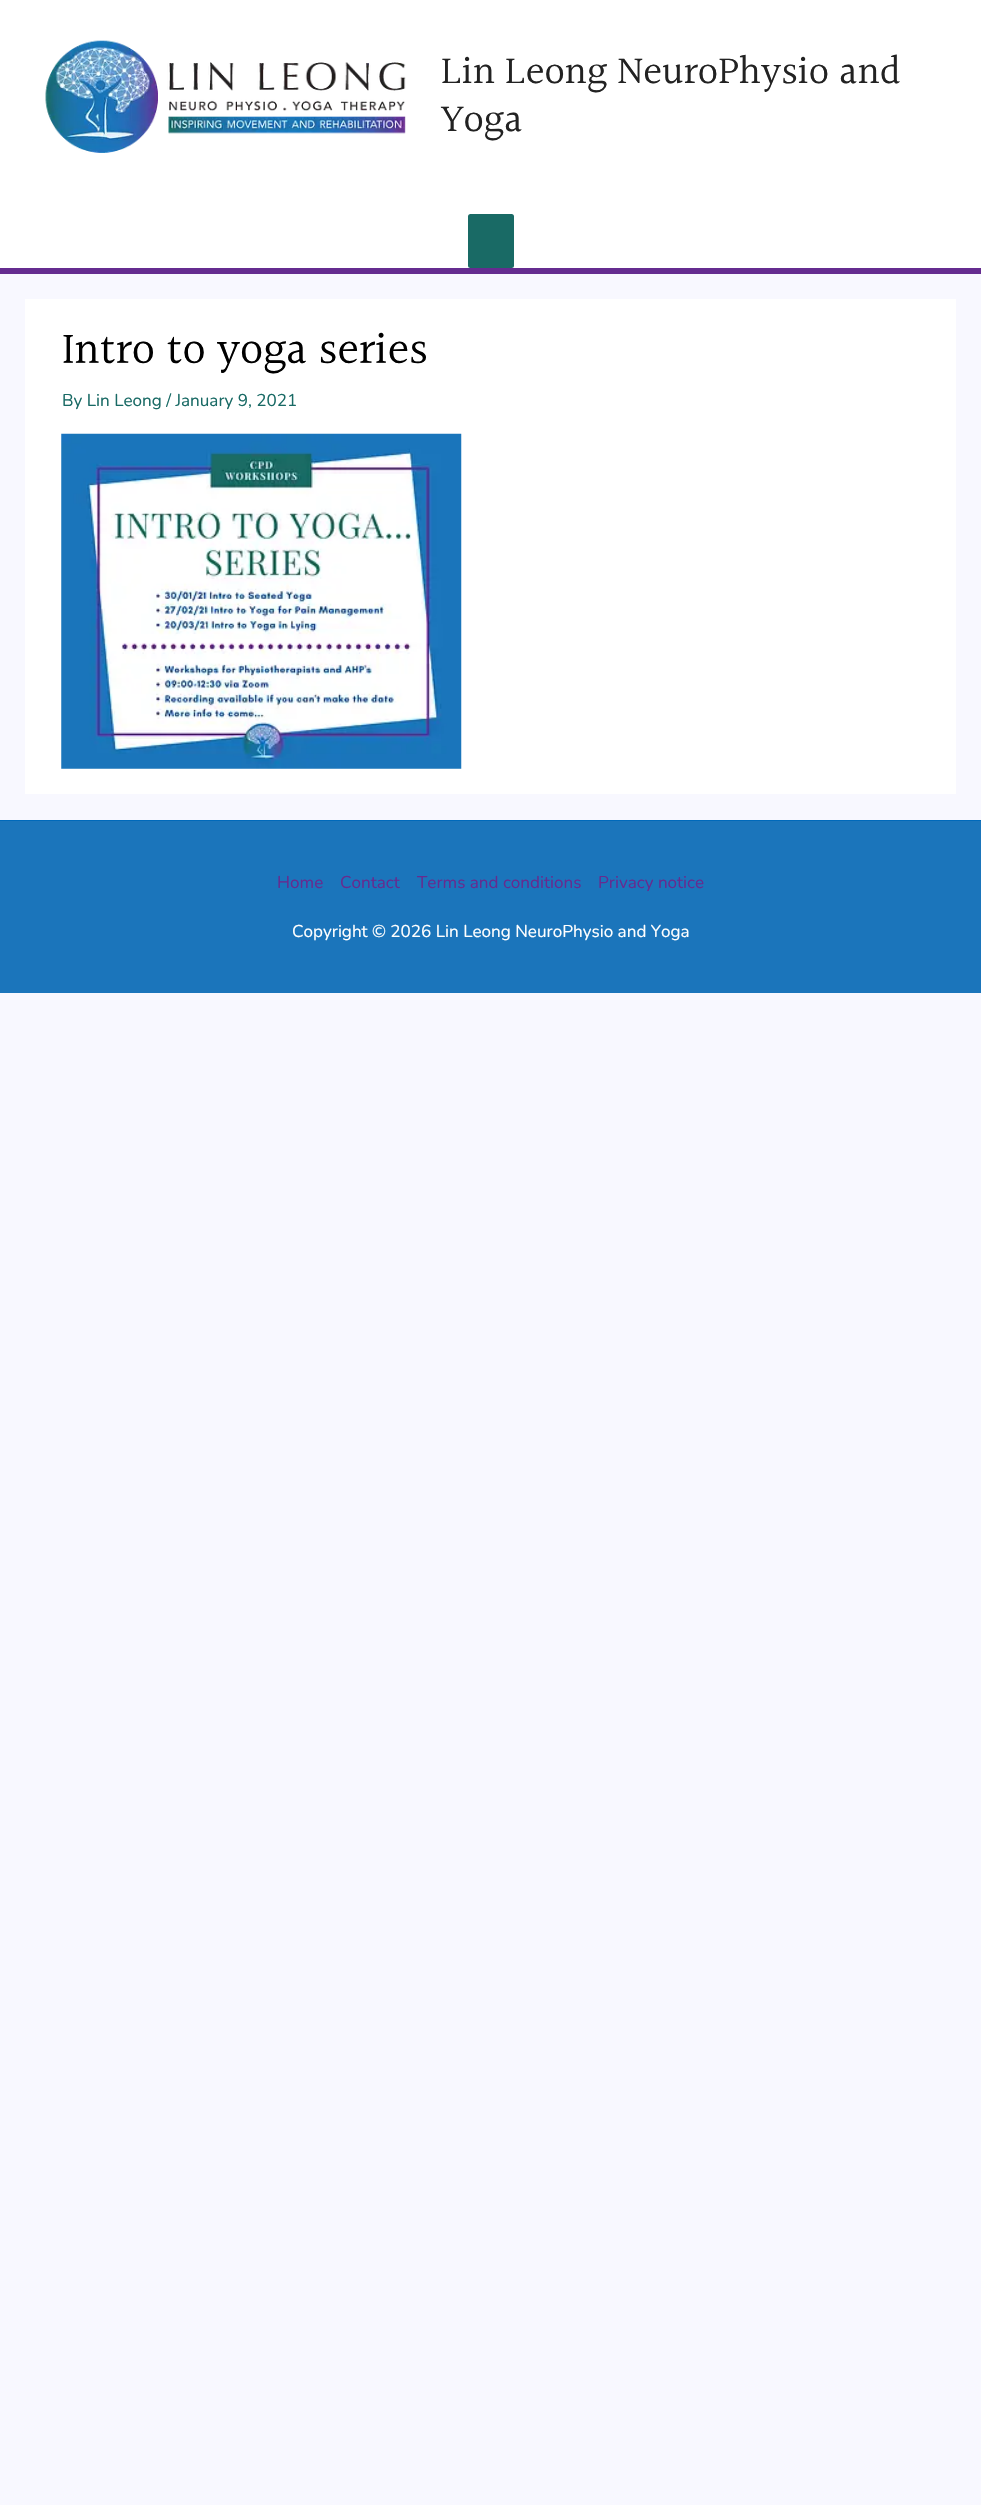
#include "include/core/SkBlurTypes.h"
#include "include/core/SkCanvas.h"
#include "include/core/SkData.h"
#include "include/core/SkFont.h"
#include "include/core/SkFontMgr.h"
#include "include/core/SkImage.h"
#include "include/core/SkMaskFilter.h"
#include "include/core/SkPaint.h"
#include "include/core/SkPathBuilder.h"
#include "include/core/SkTextBlob.h"
#include "include/effects/SkDashPathEffect.h"
#include "include/effects/SkGradientShader.h"
#include "include/utils/SkParsePath.h"

extern sk_sp<SkFontMgr> fontMgr;

void draw(SkCanvas* canvas) {
  SkPaint p;
  p.setAntiAlias(true);
  canvas->clear(SkColorSetRGB(248, 248, 255));
  p.setColor(SK_ColorWHITE);
  canvas->drawRect(SkRect::MakeLTRB(0, 0, 981, 268), p);
  p.setColor(SkColorSetRGB(101, 44, 144));
  canvas->drawRect(SkRect::MakeLTRB(0, 268, 981, 274), p);
  canvas->drawImageRect(SkImages::DeferredFromEncodedData(SkData::MakeFromFileName("images/1.png")), SkRect::MakeLTRB(45, 40, 406, 153), SkSamplingOptions());
  p.setColor(SkColorSetRGB(25, 106, 101));
  canvas->drawRoundRect(SkRect::MakeLTRB(468, 214, 514, 268), 2.5f, 2.5f, p);
  p.setColor(SK_ColorWHITE);
  canvas->drawRect(SkRect::MakeLTRB(25, 299, 956, 794), p);
  canvas->drawImageRect(SkImages::DeferredFromEncodedData(SkData::MakeFromFileName("images/2.png")), SkRect::MakeLTRB(61, 433, 462, 769), SkSamplingOptions());
  p.setColor(SkColorSetRGB(0, 105, 186));
  canvas->drawRect(SkRect::MakeLTRB(0, 820, 981, 821), p);
  p.setColor(SkColorSetRGB(27, 117, 187));
  canvas->drawRect(SkRect::MakeLTRB(0, 821, 981, 993), p);
  SkFont font1(fontMgr->matchFamilyStyle("Halant", SkFontStyle::Normal()), 39.9f);
  font1.setSubpixel(true);
  p.setColor(SkColorSetRGB(34, 34, 34));
  canvas->drawString("Lin Leong NeuroPhysio and", 441, 85, font1, p);
  canvas->drawString("Yoga", 441, 133, font1, p);
  SkFont font2(fontMgr->matchFamilyStyle("Halant", SkFontStyle::Normal()), 45.5f);
  font2.setSubpixel(true);
  p.setColor(SK_ColorBLACK);
  canvas->drawString("Intro to yoga series", 62, 365, font2, p);
  SkFont font3(fontMgr->matchFamilyStyle("Nunito", SkFontStyle(200, SkFontStyle::kNormal_Width, SkFontStyle::kUpright_Slant)), 17.1f);
  font3.setSubpixel(true);
  p.setColor(SkColorSetRGB(25, 106, 101));
  canvas->drawString("By Lin Leong / January 9, 2021", 62, 406, font3, p);
  p.setColor(SkColorSetRGB(101, 44, 144));
  canvas->drawString("Home", 277, 888, font3, p);
  canvas->drawString("Contact", 340, 888, font3, p);
  canvas->drawString("Terms and conditions", 417, 888, font3, p);
  canvas->drawString("Privacy notice", 598, 888, font3, p);
  p.setColor(SK_ColorWHITE);
  canvas->drawString("Copyright © 2026 Lin Leong NeuroPhysio and Yoga", 292, 937, font3, p);
}
